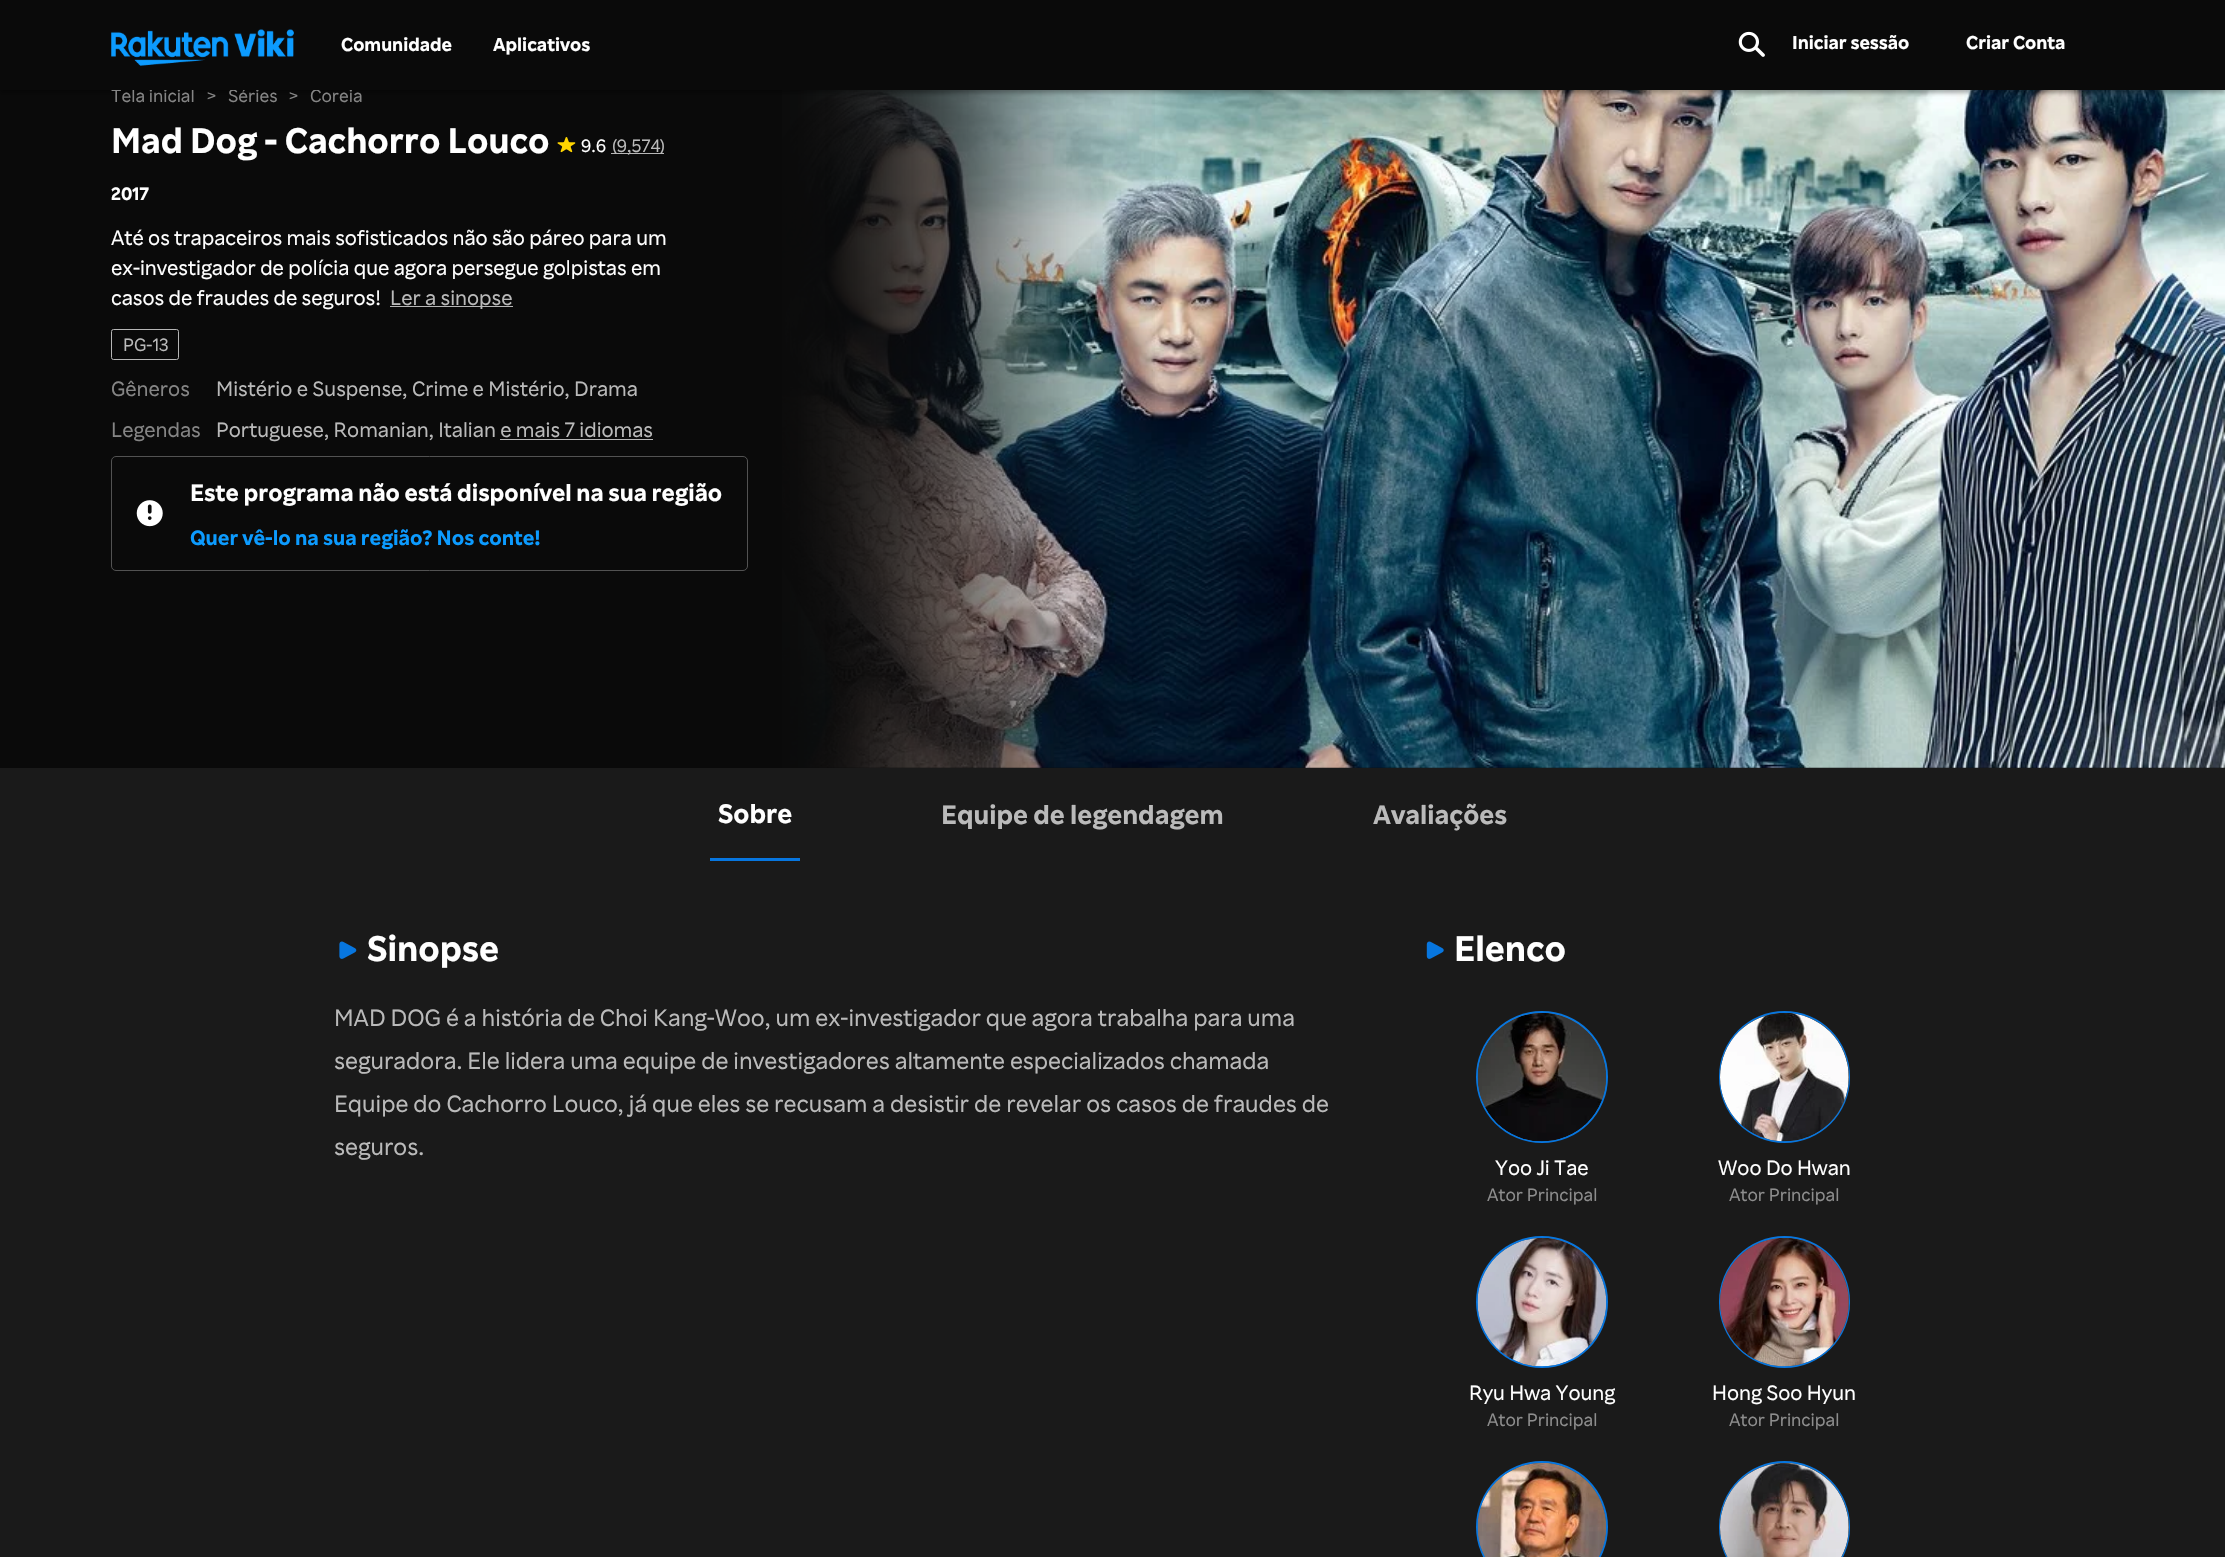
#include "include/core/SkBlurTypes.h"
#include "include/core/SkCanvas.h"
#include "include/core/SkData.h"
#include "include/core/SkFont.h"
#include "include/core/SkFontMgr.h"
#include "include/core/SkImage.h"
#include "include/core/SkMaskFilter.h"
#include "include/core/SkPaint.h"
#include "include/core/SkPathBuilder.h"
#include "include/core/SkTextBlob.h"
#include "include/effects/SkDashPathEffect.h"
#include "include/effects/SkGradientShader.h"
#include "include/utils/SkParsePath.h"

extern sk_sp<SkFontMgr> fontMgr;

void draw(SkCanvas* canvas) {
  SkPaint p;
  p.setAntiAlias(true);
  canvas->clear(SkColorSetRGB(26, 26, 26));
  p.setColor(SkColorSetRGB(10, 10, 10));
  canvas->drawRect(SkRect::MakeLTRB(0, 90, 2225, 768), p);
  canvas->drawImageRect(SkImages::DeferredFromEncodedData(SkData::MakeFromFileName("images/5.png")), SkRect::MakeLTRB(782, 90, 2225, 768), SkSamplingOptions());
  {
    const SkColor colors[] = {SkColorSetRGB(10, 10, 10), SkColorSetARGB(252, 10, 10, 10), SkColorSetARGB(242, 10, 10, 10), SkColorSetARGB(227, 10, 10, 10), SkColorSetARGB(209, 10, 10, 10), SkColorSetARGB(189, 10, 10, 10), SkColorSetARGB(166, 10, 10, 10), SkColorSetARGB(140, 10, 10, 10), SkColorSetARGB(115, 10, 10, 10), SkColorSetARGB(89, 10, 10, 10), SkColorSetARGB(66, 10, 10, 10), SkColorSetARGB(46, 10, 10, 10), SkColorSetARGB(28, 10, 10, 10), SkColorSetARGB(13, 10, 10, 10), SkColorSetARGB(3, 10, 10, 10), SkColorSetARGB(0, 10, 10, 10)};
    const float stops[] = {0, 0.08f, 0.15f, 0.22f, 0.29f, 0.35f, 0.41f, 0.47f, 0.53f, 0.59f, 0.65f, 0.71f, 0.78f, 0.84f, 0.92f, 1};
    const SkPoint ends[] = {{761, 356}, {1200, 356}};
    p.setShader(SkGradientShader::MakeLinear(ends, colors, stops, 16, SkTileMode::kClamp));
    p.setAlpha(255);
  }
  canvas->drawRect(SkRect::MakeLTRB(782, 90, 1155, 768), p);
  p.setShader(nullptr);
  p.setColor(SkColorSetARGB(77, 0, 0, 0));
  p.setMaskFilter(SkMaskFilter::MakeBlur(kNormal_SkBlurStyle, 2));
  canvas->drawRect(SkRect::MakeLTRB(0, 3, 2225, 93), p);
  p.setMaskFilter(nullptr);
  canvas->drawImageRect(SkImages::DeferredFromEncodedData(SkData::MakeFromFileName("images/3.png")), SkRect::MakeLTRB(557, 137, 576, 153), SkSamplingOptions());
  p.setColor(SkColorSetRGB(182, 182, 182));
  canvas->drawRect(SkRect::MakeLTRB(611, 153, 664, 154), p);
  canvas->drawRect(SkRect::MakeLTRB(390, 306, 513, 307), p);
  p.setStyle(SkPaint::kStroke_Style);
  p.setStrokeWidth(1);
  canvas->drawRoundRect(SkRect::MakeLTRB(111.5f, 329.5f, 178.5f, 359.5f), 2, 2, p);
  p.setColor(SkColorSetRGB(82, 82, 82));
  canvas->drawRoundRect(SkRect::MakeLTRB(111.5f, 456.5f, 747.5f, 570.5f), 4.5f, 4.5f, p);
  canvas->drawImageRect(SkImages::DeferredFromEncodedData(SkData::MakeFromFileName("images/4.png")), SkRect::MakeLTRB(136, 500, 163, 527), SkSamplingOptions());
  p.setStyle(SkPaint::kFill_Style);
  p.setColor(SkColorSetRGB(7, 118, 223));
  canvas->drawRect(SkRect::MakeLTRB(710, 858, 800, 861), p);
  canvas->drawImageRect(SkImages::DeferredFromEncodedData(SkData::MakeFromFileName("images/6.png")), SkRect::MakeLTRB(339, 941, 357, 959), SkSamplingOptions());
  canvas->drawImageRect(SkImages::DeferredFromEncodedData(SkData::MakeFromFileName("images/7.png")), SkRect::MakeLTRB(1426, 941, 1444, 959), SkSamplingOptions());
  canvas->drawCircle(1542, 1077, 66, p);
  p.setColor(SkColorSetRGB(82, 82, 82));
  canvas->drawCircle(1542, 1077, 64, p);
  canvas->drawImageRect(SkImages::DeferredFromEncodedData(SkData::MakeFromFileName("images/8.png")), SkRect::MakeLTRB(1477, 1013, 1606, 1142), SkSamplingOptions());
  p.setColor(SkColorSetRGB(7, 118, 223));
  canvas->drawRoundRect(SkRect::MakeLTRB(1719, 1011, 1850, 1143), 65.5f, 65.5f, p);
  p.setColor(SkColorSetRGB(82, 82, 82));
  canvas->drawRoundRect(SkRect::MakeLTRB(1720, 1013, 1849, 1141), 64, 64, p);
  canvas->drawImageRect(SkImages::DeferredFromEncodedData(SkData::MakeFromFileName("images/9.png")), SkRect::MakeLTRB(1720, 1013, 1849, 1142), SkSamplingOptions());
  p.setColor(SkColorSetRGB(7, 118, 223));
  canvas->drawCircle(1542, 1302, 66, p);
  p.setColor(SkColorSetRGB(82, 82, 82));
  canvas->drawCircle(1542, 1302, 64, p);
  canvas->drawImageRect(SkImages::DeferredFromEncodedData(SkData::MakeFromFileName("images/10.png")), SkRect::MakeLTRB(1477, 1238, 1606, 1367), SkSamplingOptions());
  p.setColor(SkColorSetRGB(7, 118, 223));
  canvas->drawRoundRect(SkRect::MakeLTRB(1719, 1236, 1850, 1368), 65.5f, 65.5f, p);
  p.setColor(SkColorSetRGB(82, 82, 82));
  canvas->drawRoundRect(SkRect::MakeLTRB(1720, 1238, 1849, 1366), 64, 64, p);
  canvas->drawImageRect(SkImages::DeferredFromEncodedData(SkData::MakeFromFileName("images/11.png")), SkRect::MakeLTRB(1720, 1238, 1849, 1367), SkSamplingOptions());
  p.setColor(SkColorSetRGB(7, 118, 223));
  canvas->drawCircle(1542, 1527, 66, p);
  p.setColor(SkColorSetRGB(82, 82, 82));
  canvas->drawCircle(1542, 1527, 64, p);
  canvas->drawImageRect(SkImages::DeferredFromEncodedData(SkData::MakeFromFileName("images/12.png")), SkRect::MakeLTRB(1477, 1463, 1606, 1557), SkSamplingOptions());
  p.setColor(SkColorSetRGB(7, 118, 223));
  canvas->drawRoundRect(SkRect::MakeLTRB(1719, 1461, 1850, 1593), 65.5f, 65.5f, p);
  p.setColor(SkColorSetRGB(82, 82, 82));
  canvas->drawRoundRect(SkRect::MakeLTRB(1720, 1463, 1849, 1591), 64, 64, p);
  canvas->drawImageRect(SkImages::DeferredFromEncodedData(SkData::MakeFromFileName("images/13.png")), SkRect::MakeLTRB(1720, 1463, 1849, 1557), SkSamplingOptions());
  SkFont font1(fontMgr->matchFamilyStyle("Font", SkFontStyle::Normal()), 18);
  font1.setSubpixel(true);
  p.setColor(SkColorSetRGB(133, 133, 133));
  canvas->drawString("Tela inicial", 111, 102, font1, p);
  canvas->drawString(">", 206, 102, font1, p);
  canvas->drawString("Séries", 228, 102, font1, p);
  canvas->drawString(">", 288, 102, font1, p);
  canvas->drawString("Coreia", 310, 102, font1, p);
  p.setColor(SkColorSetRGB(10, 10, 10));
  canvas->drawRect(SkRect::MakeLTRB(0, 0, 2225, 90), p);
  canvas->drawImageRect(SkImages::DeferredFromEncodedData(SkData::MakeFromFileName("images/2.png")), SkRect::MakeLTRB(1738, 31, 1765, 57), SkSamplingOptions());
  SkFont font2(fontMgr->matchFamilyStyle("Font", SkFontStyle::Bold()), 18.75f);
  font2.setSubpixel(true);
  p.setColor(SK_ColorWHITE);
  canvas->drawString("Criar Conta", 1966, 49, font2, p);
  canvas->drawString("Iniciar sessão", 1792, 49, font2, p);
  canvas->drawString("Aplicativos", 493, 51, font2, p);
  canvas->drawString("Comunidade", 341, 51, font2, p);
  canvas->drawImageRect(SkImages::DeferredFromEncodedData(SkData::MakeFromFileName("images/1.png")), SkRect::MakeLTRB(111, 29, 294, 66), SkSamplingOptions());
  SkFont font3(fontMgr->matchFamilyStyle("Font", SkFontStyle::Bold()), 35.9f);
  font3.setSubpixel(true);
  canvas->drawString("Mad Dog - Cachorro Louco", 111, 153, font3, p);
  canvas->drawString("9.6", 581, 152, font1, p);
  p.setColor(SkColorSetRGB(186, 186, 186));
  canvas->drawString("(9,574)", 612, 152, font1, p);
  SkFont font4(fontMgr->matchFamilyStyle("Font", SkFontStyle::Bold()), 18);
  font4.setSubpixel(true);
  p.setColor(SK_ColorWHITE);
  canvas->drawString("2017", 111, 200, font4, p);
  SkFont font5(fontMgr->matchFamilyStyle("Font", SkFontStyle::Normal()), 20.9f);
  font5.setSubpixel(true);
  canvas->drawString("Até os trapaceiros mais sofisticados não são páreo para um", 111, 245, font5, p);
  canvas->drawString("ex-investigador de polícia que agora persegue golpistas em", 111, 275, font5, p);
  canvas->drawString("casos de fraudes de seguros!", 111, 305, font5, p);
  p.setColor(SkColorSetRGB(186, 186, 186));
  canvas->drawString("Ler a sinopse", 390, 305, font5, p);
  canvas->drawString("PG-13", 123, 351, font1, p);
  p.setColor(SkColorSetRGB(133, 133, 133));
  canvas->drawString("Gêneros", 111, 396, font5, p);
  p.setColor(SkColorSetRGB(186, 186, 186));
  canvas->drawString("Mistério e Suspense, Crime e Mistério, Drama", 216, 396, font5, p);
  p.setColor(SkColorSetRGB(133, 133, 133));
  canvas->drawString("Legendas", 111, 437, font5, p);
  p.setColor(SkColorSetRGB(186, 186, 186));
  canvas->drawString("Portuguese, Romanian, Italian e mais 7 idiomas", 216, 437, font5, p);
  p.setColor(SkColorSetRGB(182, 182, 182));
  canvas->drawRect(SkRect::MakeLTRB(500, 439, 653, 440), p);
  SkFont font6(fontMgr->matchFamilyStyle("Font", SkFontStyle::Bold()), 23.9f);
  font6.setSubpixel(true);
  p.setColor(SK_ColorWHITE);
  canvas->drawString("Este programa não está disponível na sua região", 190, 501, font6, p);
  SkFont font7(fontMgr->matchFamilyStyle("Font", SkFontStyle::Bold()), 20.9f);
  font7.setSubpixel(true);
  p.setColor(SkColorSetRGB(12, 155, 255));
  canvas->drawString("Quer vê-lo na sua região? Nos conte!", 190, 545, font7, p);
  SkFont font8(fontMgr->matchFamilyStyle("Font", SkFontStyle::Bold()), 26.9f);
  font8.setSubpixel(true);
  p.setColor(SK_ColorWHITE);
  canvas->drawString("Sobre", 718, 823, font8, p);
  p.setColor(SkColorSetRGB(186, 186, 186));
  canvas->drawString("Equipe de legendagem", 941, 824, font8, p);
  canvas->drawString("Avaliações", 1373, 824, font8, p);
  p.setColor(SK_ColorWHITE);
  canvas->drawString("Sinopse", 367, 961, font3, p);
  SkFont font9(fontMgr->matchFamilyStyle("Font", SkFontStyle::Normal()), 23.9f);
  font9.setSubpixel(true);
  p.setColor(SkColorSetRGB(186, 186, 186));
  canvas->drawString("MAD DOG é a história de Choi Kang-Woo, um ex-investigador que agora trabalha para uma", 334, 1026, font9, p);
  canvas->drawString("seguradora. Ele lidera uma equipe de investigadores altamente especializados chamada", 334, 1069, font9, p);
  canvas->drawString("Equipe do Cachorro Louco, já que eles se recusam a desistir de revelar os casos de fraudes de", 334, 1112, font9, p);
  canvas->drawString("seguros.", 334, 1155, font9, p);
  p.setColor(SK_ColorWHITE);
  canvas->drawString("Elenco", 1454, 961, font3, p);
  canvas->drawString("Yoo Ji Tae", 1495, 1175, font5, p);
  p.setColor(SkColorSetRGB(141, 141, 141));
  canvas->drawString("Ator Principal", 1487, 1201, font1, p);
  p.setColor(SK_ColorWHITE);
  canvas->drawString("Woo Do Hwan", 1718, 1175, font5, p);
  p.setColor(SkColorSetRGB(141, 141, 141));
  canvas->drawString("Ator Principal", 1729, 1201, font1, p);
  p.setColor(SK_ColorWHITE);
  canvas->drawString("Ryu Hwa Young", 1469, 1400, font5, p);
  p.setColor(SkColorSetRGB(141, 141, 141));
  canvas->drawString("Ator Principal", 1487, 1426, font1, p);
  p.setColor(SK_ColorWHITE);
  canvas->drawString("Hong Soo Hyun", 1712, 1400, font5, p);
  p.setColor(SkColorSetRGB(141, 141, 141));
  canvas->drawString("Ator Principal", 1729, 1426, font1, p);
}
